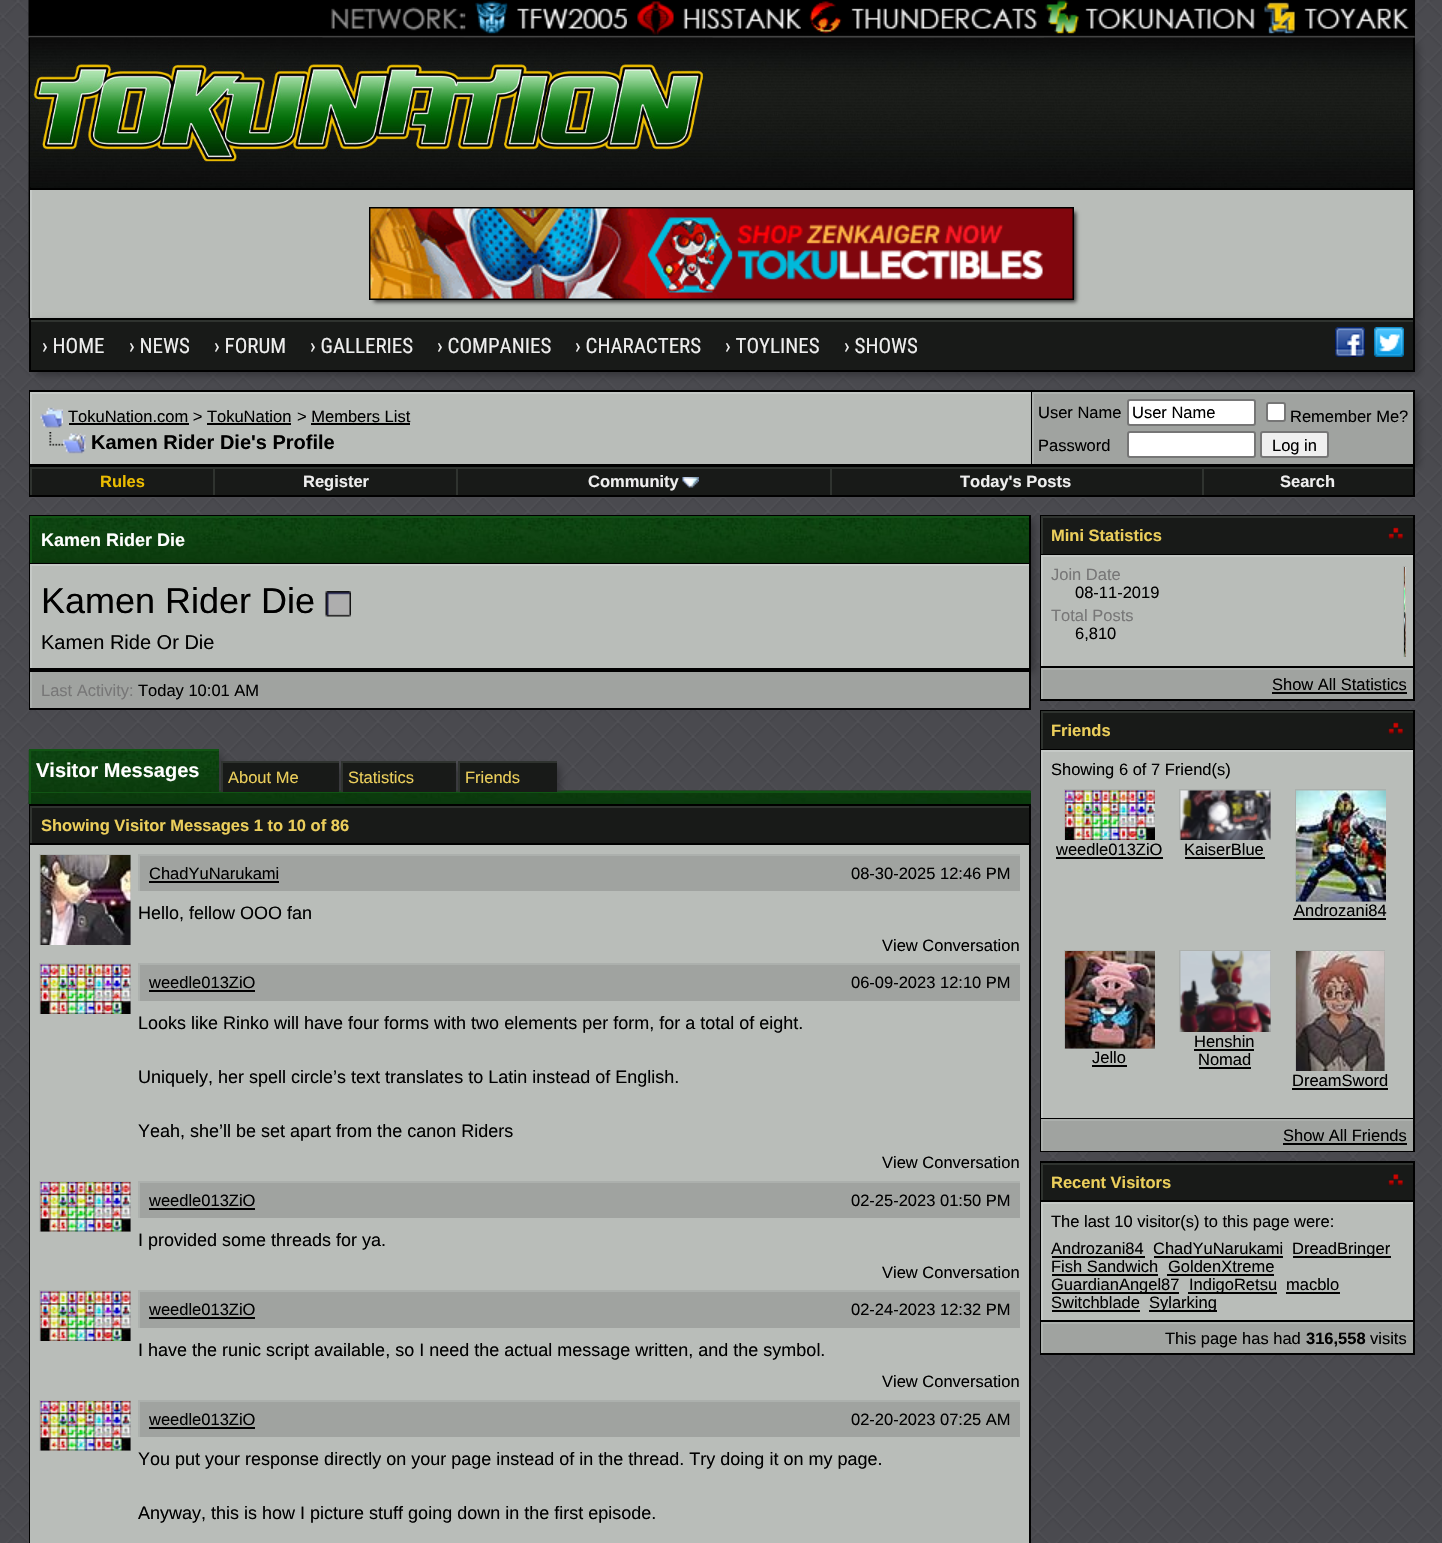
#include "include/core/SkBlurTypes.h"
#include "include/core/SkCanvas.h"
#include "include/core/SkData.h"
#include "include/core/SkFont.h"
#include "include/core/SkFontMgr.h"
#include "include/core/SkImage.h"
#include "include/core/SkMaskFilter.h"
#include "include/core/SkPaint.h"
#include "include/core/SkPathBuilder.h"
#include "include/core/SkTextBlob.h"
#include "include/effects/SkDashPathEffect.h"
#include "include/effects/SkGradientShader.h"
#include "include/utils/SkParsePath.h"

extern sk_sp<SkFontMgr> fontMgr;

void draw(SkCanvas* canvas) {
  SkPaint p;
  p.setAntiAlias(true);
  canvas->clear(SK_ColorWHITE);
  canvas->drawImageRect(SkImages::DeferredFromEncodedData(SkData::MakeFromFileName("images/1.png")), SkRect::MakeLTRB(0, 0, 1442, 1543), SkSamplingOptions());
  p.setColor(SK_ColorBLACK);
  canvas->drawRect(SkRect::MakeLTRB(29, 0, 1415, 38), p);
  canvas->drawImageRect(SkImages::DeferredFromEncodedData(SkData::MakeFromFileName("images/2.png")), SkRect::MakeLTRB(28, 0, 1415, 38), SkSamplingOptions());
  canvas->drawImageRect(SkImages::DeferredFromEncodedData(SkData::MakeFromFileName("images/3.png")), SkRect::MakeLTRB(322, 0, 1415, 38), SkSamplingOptions());
  canvas->drawImageRect(SkImages::DeferredFromEncodedData(SkData::MakeFromFileName("images/4.png")), SkRect::MakeLTRB(463, 1, 627, 38), SkSamplingOptions());
  canvas->drawImageRect(SkImages::DeferredFromEncodedData(SkData::MakeFromFileName("images/5.png")), SkRect::MakeLTRB(627, 1, 801, 38), SkSamplingOptions());
  canvas->drawImageRect(SkImages::DeferredFromEncodedData(SkData::MakeFromFileName("images/6.png")), SkRect::MakeLTRB(801, 1, 1044, 38), SkSamplingOptions());
  p.setColor(SkColorSetRGB(50, 50, 54));
  p.setMaskFilter(SkMaskFilter::MakeBlur(kNormal_SkBlurStyle, 4));
  canvas->drawRect(SkRect::MakeLTRB(35, 44, 1418, 321), p);
  p.setMaskFilter(nullptr);
  canvas->drawImageRect(SkImages::DeferredFromEncodedData(SkData::MakeFromFileName("images/7.png")), SkRect::MakeLTRB(28, 37, 1415, 318), SkSamplingOptions());
  p.setColor(SK_ColorBLACK);
  canvas->drawRect(SkRect::MakeLTRB(1413, 38, 1415, 318), p);
  canvas->drawRect(SkRect::MakeLTRB(29, 38, 31, 318), p);
  canvas->drawImageRect(SkImages::DeferredFromEncodedData(SkData::MakeFromFileName("images/8.png")), SkRect::MakeLTRB(30, 37, 713, 188), SkSamplingOptions());
  p.setColor(SkColorSetRGB(185, 189, 185));
  canvas->drawRect(SkRect::MakeLTRB(32, 190, 1413, 318), p);
  canvas->save();
  canvas->clipRect(SkRect::MakeLTRB(30, 189, 1413, 318));
  p.setColor(SkColorSetRGB(197, 201, 198));
  canvas->drawPath(SkPathBuilder(SkPathFillType::kEvenOdd).moveTo(-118, 40).lineTo(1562, 40).lineTo(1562, 466).lineTo(-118, 466).close().moveTo(32, 190).lineTo(1414, 190).lineTo(1414, 320).lineTo(32, 320).close().detach(), p);
  canvas->restore();
  p.setColor(SK_ColorBLACK);
  canvas->drawRect(SkRect::MakeLTRB(30, 188, 1413, 190), p);
  p.setColor(SkColorSetRGB(51, 51, 51));
  p.setMaskFilter(SkMaskFilter::MakeBlur(kNormal_SkBlurStyle, 2));
  canvas->drawRect(SkRect::MakeLTRB(374, 212, 1076, 302), p);
  p.setMaskFilter(nullptr);
  p.setStyle(SkPaint::kStroke_Style);
  p.setStrokeWidth(2);
  p.setColor(SK_ColorBLACK);
  canvas->drawRect(SkRect::MakeLTRB(370, 208, 1073, 299), p);
  canvas->drawImageRect(SkImages::DeferredFromEncodedData(SkData::MakeFromFileName("images/9.png")), SkRect::MakeLTRB(370, 208, 1073, 299), SkSamplingOptions());
  p.setStyle(SkPaint::kFill_Style);
  p.setColor(SkColorSetRGB(50, 50, 54));
  p.setMaskFilter(SkMaskFilter::MakeBlur(kNormal_SkBlurStyle, 4));
  canvas->drawRect(SkRect::MakeLTRB(35, 324, 1418, 375), p);
  p.setMaskFilter(nullptr);
  p.setColor(SkColorSetRGB(24, 26, 24));
  canvas->drawRect(SkRect::MakeLTRB(31, 322, 1413, 370), p);
  p.setColor(SkColorSetRGB(47, 51, 47));
  canvas->drawRect(SkRect::MakeLTRB(30, 320, 1413, 322), p);
  p.setStyle(SkPaint::kStroke_Style);
  p.setColor(SK_ColorBLACK);
  canvas->drawRect(SkRect::MakeLTRB(30, 319, 1414, 371), p);
  canvas->drawImageRect(SkImages::DeferredFromEncodedData(SkData::MakeFromFileName("images/10.png")), SkRect::MakeLTRB(1335, 327, 1365, 357), SkSamplingOptions());
  canvas->drawImageRect(SkImages::DeferredFromEncodedData(SkData::MakeFromFileName("images/11.png")), SkRect::MakeLTRB(1374, 327, 1404, 357), SkSamplingOptions());
  p.setStyle(SkPaint::kFill_Style);
  p.setColor(SkColorSetRGB(50, 50, 54));
  p.setMaskFilter(SkMaskFilter::MakeBlur(kNormal_SkBlurStyle, 4));
  canvas->drawRect(SkRect::MakeLTRB(35, 396, 1418, 468), p);
  p.setMaskFilter(nullptr);
  p.setColor(SK_ColorBLACK);
  canvas->drawRect(SkRect::MakeLTRB(29, 390, 1415, 497), p);
  p.setColor(SkColorSetRGB(185, 189, 185));
  canvas->drawRect(SkRect::MakeLTRB(32, 394, 1031, 464), p);
  p.setColor(SkColorSetRGB(197, 201, 198));
  canvas->drawRect(SkRect::MakeLTRB(30, 392, 1031, 394), p);
  canvas->drawRect(SkRect::MakeLTRB(30, 392, 32, 464), p);
  canvas->drawImageRect(SkImages::DeferredFromEncodedData(SkData::MakeFromFileName("images/12.png")), SkRect::MakeLTRB(40, 407, 63, 428), SkSamplingOptions());
  p.setColor(SK_ColorBLACK);
  canvas->drawRect(SkRect::MakeLTRB(69, 423, 189, 425), p);
  canvas->drawRect(SkRect::MakeLTRB(207, 423, 291, 425), p);
  canvas->drawRect(SkRect::MakeLTRB(311, 423, 410, 425), p);
  canvas->drawImageRect(SkImages::DeferredFromEncodedData(SkData::MakeFromFileName("images/13.png")), SkRect::MakeLTRB(49, 432, 86, 454), SkSamplingOptions());
  p.setColor(SkColorSetRGB(160, 163, 160));
  canvas->drawRect(SkRect::MakeLTRB(1034, 394, 1413, 464), p);
  p.setColor(SkColorSetRGB(172, 176, 173));
  canvas->drawRect(SkRect::MakeLTRB(1032, 392, 1413, 394), p);
  canvas->drawRect(SkRect::MakeLTRB(1032, 392, 1034, 464), p);
  p.setColor(SK_ColorWHITE);
  canvas->drawRoundRect(SkRect::MakeLTRB(1128, 400, 1255, 425), 2, 2, p);
  p.setStyle(SkPaint::kStroke_Style);
  p.setColor(SkColorSetRGB(118, 118, 118));
  canvas->drawRoundRect(SkRect::MakeLTRB(1128, 400, 1255, 425), 2, 2, p);
  p.setStyle(SkPaint::kFill_Style);
  p.setColor(SK_ColorWHITE);
  canvas->drawRoundRect(SkRect::MakeLTRB(1267, 403, 1285, 421), 2, 2, p);
  p.setStyle(SkPaint::kStroke_Style);
  p.setColor(SkColorSetRGB(118, 118, 118));
  canvas->drawRoundRect(SkRect::MakeLTRB(1267, 403, 1285, 421), 2, 2, p);
  p.setStyle(SkPaint::kFill_Style);
  p.setColor(SK_ColorWHITE);
  canvas->drawRoundRect(SkRect::MakeLTRB(1128, 432, 1255, 457), 2, 2, p);
  p.setStyle(SkPaint::kStroke_Style);
  p.setColor(SkColorSetRGB(118, 118, 118));
  canvas->drawRoundRect(SkRect::MakeLTRB(1128, 432, 1255, 457), 2, 2, p);
  p.setStyle(SkPaint::kFill_Style);
  p.setColor(SkColorSetRGB(239, 239, 239));
  canvas->drawRoundRect(SkRect::MakeLTRB(1261, 432, 1328, 457), 2, 2, p);
  p.setStyle(SkPaint::kStroke_Style);
  p.setColor(SkColorSetRGB(118, 118, 118));
  canvas->drawRoundRect(SkRect::MakeLTRB(1261, 432, 1328, 457), 2, 2, p);
  p.setStyle(SkPaint::kFill_Style);
  p.setColor(SkColorSetRGB(24, 26, 24));
  canvas->drawRect(SkRect::MakeLTRB(32, 469, 213, 495), p);
  p.setColor(SkColorSetRGB(47, 51, 47));
  canvas->drawRect(SkRect::MakeLTRB(30, 467, 1413, 469), p);
  canvas->drawRect(SkRect::MakeLTRB(30, 467, 32, 495), p);
  p.setColor(SkColorSetRGB(24, 26, 24));
  canvas->drawRect(SkRect::MakeLTRB(215, 469, 456, 495), p);
  p.setColor(SkColorSetRGB(47, 51, 47));
  canvas->drawRect(SkRect::MakeLTRB(213, 467, 215, 495), p);
  p.setColor(SkColorSetRGB(24, 26, 24));
  canvas->drawRect(SkRect::MakeLTRB(458, 469, 830, 495), p);
  p.setColor(SkColorSetRGB(47, 51, 47));
  canvas->drawRect(SkRect::MakeLTRB(456, 467, 458, 495), p);
  canvas->drawImageRect(SkImages::DeferredFromEncodedData(SkData::MakeFromFileName("images/14.png")), SkRect::MakeLTRB(682, 477, 699, 488), SkSamplingOptions());
  p.setColor(SkColorSetRGB(24, 26, 24));
  canvas->drawRect(SkRect::MakeLTRB(832, 469, 1202, 495), p);
  p.setColor(SkColorSetRGB(47, 51, 47));
  canvas->drawRect(SkRect::MakeLTRB(830, 467, 832, 495), p);
  p.setColor(SkColorSetRGB(24, 26, 24));
  canvas->drawRect(SkRect::MakeLTRB(1204, 469, 1413, 495), p);
  p.setColor(SkColorSetRGB(47, 51, 47));
  canvas->drawRect(SkRect::MakeLTRB(1202, 467, 1204, 495), p);
  p.setColor(SkColorSetRGB(50, 50, 54));
  p.setMaskFilter(SkMaskFilter::MakeBlur(kNormal_SkBlurStyle, 4));
  canvas->drawRect(SkRect::MakeLTRB(35, 521, 1034, 672), p);
  p.setMaskFilter(nullptr);
  p.setColor(SK_ColorBLACK);
  canvas->drawRect(SkRect::MakeLTRB(29, 515, 1031, 710), p);
  p.setColor(SkColorSetRGB(11, 55, 13));
  canvas->drawRect(SkRect::MakeLTRB(32, 562, 1029, 563), p);
  canvas->drawImageRect(SkImages::DeferredFromEncodedData(SkData::MakeFromFileName("images/15.png")), SkRect::MakeLTRB(32, 518, 1029, 562), SkSamplingOptions());
  p.setColor(SkColorSetRGB(17, 84, 20));
  canvas->drawRect(SkRect::MakeLTRB(30, 516, 1029, 518), p);
  canvas->drawRect(SkRect::MakeLTRB(30, 516, 32, 563), p);
  p.setColor(SkColorSetRGB(185, 189, 185));
  canvas->drawRect(SkRect::MakeLTRB(32, 566, 1029, 668), p);
  p.setColor(SkColorSetRGB(197, 201, 198));
  canvas->drawRect(SkRect::MakeLTRB(30, 564, 1029, 566), p);
  canvas->drawRect(SkRect::MakeLTRB(30, 564, 32, 668), p);
  canvas->drawImageRect(SkImages::DeferredFromEncodedData(SkData::MakeFromFileName("images/16.png")), SkRect::MakeLTRB(325, 591, 351, 617), SkSamplingOptions());
  p.setColor(SkColorSetRGB(160, 163, 160));
  canvas->drawRect(SkRect::MakeLTRB(32, 672, 1029, 708), p);
  p.setColor(SkColorSetRGB(172, 176, 173));
  canvas->drawRect(SkRect::MakeLTRB(30, 672, 32, 708), p);
  p.setColor(SkColorSetRGB(11, 55, 13));
  canvas->drawRect(SkRect::MakeLTRB(1030, 793, 1031, 804), p);
  canvas->drawImageRect(SkImages::DeferredFromEncodedData(SkData::MakeFromFileName("images/18.png")), SkRect::MakeLTRB(28, 790, 1031, 804), SkSamplingOptions());
  p.setColor(SkColorSetRGB(17, 84, 20));
  canvas->drawRect(SkRect::MakeLTRB(29, 791, 1031, 793), p);
  canvas->drawRect(SkRect::MakeLTRB(29, 791, 31, 804), p);
  p.setColor(SK_ColorBLACK);
  canvas->drawRect(SkRect::MakeLTRB(29, 804, 1031, 1543), p);
  p.setColor(SkColorSetRGB(47, 51, 47));
  canvas->drawRect(SkRect::MakeLTRB(30, 806, 1029, 808), p);
  canvas->drawRect(SkRect::MakeLTRB(30, 806, 32, 843), p);
  canvas->save();
  canvas->clipRect(SkRect::MakeLTRB(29, 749, 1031, 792));
  p.setColor(SkColorSetRGB(50, 50, 54));
  p.setMaskFilter(SkMaskFilter::MakeBlur(kNormal_SkBlurStyle, 4));
  canvas->drawRect(SkRect::MakeLTRB(35, 755, 222, 795), p);
  p.setMaskFilter(nullptr);
  canvas->restore();
  canvas->drawImageRect(SkImages::DeferredFromEncodedData(SkData::MakeFromFileName("images/17.png")), SkRect::MakeLTRB(28, 750, 219, 792), SkSamplingOptions());
  p.setColor(SkColorSetRGB(17, 84, 20));
  canvas->drawRect(SkRect::MakeLTRB(29, 749, 219, 751), p);
  canvas->drawRect(SkRect::MakeLTRB(29, 749, 31, 792), p);
  canvas->save();
  canvas->clipRect(SkRect::MakeLTRB(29, 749, 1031, 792));
  p.setColor(SkColorSetRGB(50, 50, 54));
  p.setMaskFilter(SkMaskFilter::MakeBlur(kNormal_SkBlurStyle, 4));
  canvas->drawRect(SkRect::MakeLTRB(227, 767, 342, 795), p);
  p.setMaskFilter(nullptr);
  canvas->restore();
  p.setColor(SkColorSetRGB(24, 26, 24));
  canvas->drawRect(SkRect::MakeLTRB(223, 763, 339, 792), p);
  p.setColor(SkColorSetRGB(47, 51, 47));
  canvas->drawRect(SkRect::MakeLTRB(221, 761, 339, 763), p);
  canvas->drawRect(SkRect::MakeLTRB(221, 761, 223, 792), p);
  canvas->save();
  canvas->clipRect(SkRect::MakeLTRB(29, 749, 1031, 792));
  p.setColor(SkColorSetRGB(50, 50, 54));
  p.setMaskFilter(SkMaskFilter::MakeBlur(kNormal_SkBlurStyle, 4));
  canvas->drawRect(SkRect::MakeLTRB(347, 767, 459, 795), p);
  p.setMaskFilter(nullptr);
  canvas->restore();
  p.setColor(SkColorSetRGB(24, 26, 24));
  canvas->drawRect(SkRect::MakeLTRB(343, 763, 456, 792), p);
  p.setColor(SkColorSetRGB(47, 51, 47));
  canvas->drawRect(SkRect::MakeLTRB(341, 761, 456, 763), p);
  canvas->drawRect(SkRect::MakeLTRB(341, 761, 343, 792), p);
  canvas->save();
  canvas->clipRect(SkRect::MakeLTRB(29, 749, 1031, 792));
  p.setColor(SkColorSetRGB(50, 50, 54));
  p.setMaskFilter(SkMaskFilter::MakeBlur(kNormal_SkBlurStyle, 4));
  canvas->drawRect(SkRect::MakeLTRB(464, 767, 560, 795), p);
  p.setMaskFilter(nullptr);
  canvas->restore();
  p.setColor(SkColorSetRGB(24, 26, 24));
  canvas->drawRect(SkRect::MakeLTRB(460, 763, 557, 792), p);
  p.setColor(SkColorSetRGB(47, 51, 47));
  canvas->drawRect(SkRect::MakeLTRB(458, 761, 557, 763), p);
  canvas->drawRect(SkRect::MakeLTRB(458, 761, 460, 792), p);
  p.setColor(SkColorSetRGB(24, 26, 24));
  canvas->drawRect(SkRect::MakeLTRB(32, 808, 1029, 843), p);
  p.setColor(SkColorSetRGB(185, 189, 185));
  canvas->drawRect(SkRect::MakeLTRB(30, 845, 1029, 1543), p);
  p.setColor(SkColorSetRGB(172, 176, 173));
  canvas->drawRect(SkRect::MakeLTRB(39, 854, 131, 856), p);
  canvas->drawRect(SkRect::MakeLTRB(39, 854, 41, 945), p);
  p.setColor(SkColorSetRGB(160, 163, 160));
  canvas->drawRect(SkRect::MakeLTRB(130, 856, 131, 945), p);
  canvas->drawImageRect(SkImages::DeferredFromEncodedData(SkData::MakeFromFileName("images/19.png")), SkRect::MakeLTRB(40, 855, 131, 945), SkSamplingOptions());
  canvas->drawRect(SkRect::MakeLTRB(140, 856, 1020, 891), p);
  p.setColor(SkColorSetRGB(172, 176, 173));
  canvas->drawRect(SkRect::MakeLTRB(138, 854, 1020, 856), p);
  canvas->drawRect(SkRect::MakeLTRB(138, 854, 140, 891), p);
  p.setColor(SK_ColorBLACK);
  canvas->drawRect(SkRect::MakeLTRB(149, 881, 279, 883), p);
  p.setColor(SkColorSetRGB(172, 176, 173));
  canvas->drawRect(SkRect::MakeLTRB(39, 963, 131, 965), p);
  canvas->drawRect(SkRect::MakeLTRB(39, 963, 41, 1014), p);
  p.setColor(SkColorSetRGB(160, 163, 160));
  canvas->drawRect(SkRect::MakeLTRB(130, 965, 131, 1014), p);
  canvas->drawImageRect(SkImages::DeferredFromEncodedData(SkData::MakeFromFileName("images/20.png")), SkRect::MakeLTRB(40, 964, 131, 1014), SkSamplingOptions());
  canvas->drawRect(SkRect::MakeLTRB(140, 965, 1020, 1001), p);
  p.setColor(SkColorSetRGB(172, 176, 173));
  canvas->drawRect(SkRect::MakeLTRB(138, 963, 1020, 965), p);
  canvas->drawRect(SkRect::MakeLTRB(138, 963, 140, 1001), p);
  p.setColor(SK_ColorBLACK);
  canvas->drawRect(SkRect::MakeLTRB(149, 990, 255, 992), p);
  p.setColor(SkColorSetRGB(172, 176, 173));
  canvas->drawRect(SkRect::MakeLTRB(39, 1181, 131, 1183), p);
  canvas->drawRect(SkRect::MakeLTRB(39, 1181, 41, 1232), p);
  p.setColor(SkColorSetRGB(160, 163, 160));
  canvas->drawRect(SkRect::MakeLTRB(41, 1183, 131, 1232), p);
  canvas->drawImageRect(SkImages::DeferredFromEncodedData(SkData::MakeFromFileName("images/21.png")), SkRect::MakeLTRB(40, 1182, 131, 1232), SkSamplingOptions());
  canvas->drawRect(SkRect::MakeLTRB(140, 1183, 1020, 1218), p);
  p.setColor(SkColorSetRGB(172, 176, 173));
  canvas->drawRect(SkRect::MakeLTRB(138, 1181, 1020, 1183), p);
  canvas->drawRect(SkRect::MakeLTRB(138, 1181, 140, 1218), p);
  p.setColor(SK_ColorBLACK);
  canvas->drawRect(SkRect::MakeLTRB(149, 1208, 255, 1210), p);
  p.setColor(SkColorSetRGB(172, 176, 173));
  canvas->drawRect(SkRect::MakeLTRB(39, 1290, 131, 1292), p);
  canvas->drawRect(SkRect::MakeLTRB(39, 1290, 41, 1341), p);
  p.setColor(SkColorSetRGB(160, 163, 160));
  canvas->drawRect(SkRect::MakeLTRB(130, 1292, 131, 1341), p);
  canvas->drawImageRect(SkImages::DeferredFromEncodedData(SkData::MakeFromFileName("images/20.png")), SkRect::MakeLTRB(40, 1291, 131, 1341), SkSamplingOptions());
  canvas->drawRect(SkRect::MakeLTRB(140, 1292, 1020, 1328), p);
  p.setColor(SkColorSetRGB(172, 176, 173));
  canvas->drawRect(SkRect::MakeLTRB(138, 1290, 1020, 1292), p);
  canvas->drawRect(SkRect::MakeLTRB(138, 1290, 140, 1328), p);
  p.setColor(SK_ColorBLACK);
  canvas->drawRect(SkRect::MakeLTRB(149, 1317, 255, 1319), p);
  p.setColor(SkColorSetRGB(172, 176, 173));
  canvas->drawRect(SkRect::MakeLTRB(39, 1400, 131, 1402), p);
  canvas->drawRect(SkRect::MakeLTRB(39, 1400, 41, 1451), p);
  p.setColor(SkColorSetRGB(160, 163, 160));
  canvas->drawRect(SkRect::MakeLTRB(41, 1402, 131, 1451), p);
  canvas->drawImageRect(SkImages::DeferredFromEncodedData(SkData::MakeFromFileName("images/21.png")), SkRect::MakeLTRB(40, 1401, 131, 1451), SkSamplingOptions());
  canvas->drawRect(SkRect::MakeLTRB(140, 1402, 1020, 1437), p);
  p.setColor(SkColorSetRGB(172, 176, 173));
  canvas->drawRect(SkRect::MakeLTRB(138, 1400, 1020, 1402), p);
  canvas->drawRect(SkRect::MakeLTRB(138, 1400, 140, 1437), p);
  p.setColor(SK_ColorBLACK);
  canvas->drawRect(SkRect::MakeLTRB(149, 1427, 255, 1429), p);
  canvas->drawRect(SkRect::MakeLTRB(1040, 515, 1415, 701), p);
  p.setColor(SkColorSetRGB(24, 26, 24));
  canvas->drawRect(SkRect::MakeLTRB(1043, 518, 1413, 554), p);
  p.setColor(SkColorSetRGB(47, 51, 47));
  canvas->drawRect(SkRect::MakeLTRB(1041, 516, 1413, 518), p);
  canvas->drawRect(SkRect::MakeLTRB(1041, 516, 1043, 554), p);
  canvas->drawImageRect(SkImages::DeferredFromEncodedData(SkData::MakeFromFileName("images/22.png")), SkRect::MakeLTRB(1388, 527, 1403, 539), SkSamplingOptions());
  p.setColor(SkColorSetRGB(185, 189, 185));
  canvas->drawRect(SkRect::MakeLTRB(1043, 557, 1413, 666), p);
  p.setColor(SkColorSetRGB(197, 201, 198));
  canvas->drawRect(SkRect::MakeLTRB(1041, 555, 1413, 557), p);
  canvas->drawRect(SkRect::MakeLTRB(1041, 555, 1043, 666), p);
  p.setColor(SkColorSetRGB(160, 163, 160));
  canvas->drawRect(SkRect::MakeLTRB(1405, 566, 1406, 657), p);
  p.setColor(SkColorSetRGB(172, 176, 173));
  canvas->drawRect(SkRect::MakeLTRB(1403, 566, 1406, 568), p);
  canvas->drawRect(SkRect::MakeLTRB(1403, 566, 1405, 657), p);
  canvas->drawImageRect(SkImages::DeferredFromEncodedData(SkData::MakeFromFileName("images/23.png")), SkRect::MakeLTRB(1404, 567, 1406, 657), SkSamplingOptions());
  p.setColor(SkColorSetRGB(160, 163, 160));
  canvas->drawRect(SkRect::MakeLTRB(1043, 670, 1413, 699), p);
  p.setColor(SkColorSetRGB(172, 176, 173));
  canvas->drawRect(SkRect::MakeLTRB(1041, 668, 1413, 670), p);
  canvas->drawRect(SkRect::MakeLTRB(1041, 668, 1043, 699), p);
  p.setColor(SK_ColorBLACK);
  canvas->drawRect(SkRect::MakeLTRB(1272, 692, 1407, 694), p);
  canvas->drawRect(SkRect::MakeLTRB(1040, 710, 1415, 1152), p);
  p.setColor(SkColorSetRGB(24, 26, 24));
  canvas->drawRect(SkRect::MakeLTRB(1043, 713, 1413, 749), p);
  p.setColor(SkColorSetRGB(47, 51, 47));
  canvas->drawRect(SkRect::MakeLTRB(1041, 711, 1413, 713), p);
  canvas->drawRect(SkRect::MakeLTRB(1041, 711, 1043, 749), p);
  canvas->drawImageRect(SkImages::DeferredFromEncodedData(SkData::MakeFromFileName("images/22.png")), SkRect::MakeLTRB(1388, 722, 1403, 734), SkSamplingOptions());
  p.setColor(SkColorSetRGB(185, 189, 185));
  canvas->drawRect(SkRect::MakeLTRB(1043, 752, 1413, 1118), p);
  p.setColor(SkColorSetRGB(197, 201, 198));
  canvas->drawRect(SkRect::MakeLTRB(1041, 750, 1413, 752), p);
  canvas->drawRect(SkRect::MakeLTRB(1041, 750, 1043, 1118), p);
  p.setColor(SkColorSetRGB(172, 176, 173));
  canvas->drawRect(SkRect::MakeLTRB(1064, 789, 1155, 791), p);
  canvas->drawRect(SkRect::MakeLTRB(1064, 789, 1066, 840), p);
  canvas->drawImageRect(SkImages::DeferredFromEncodedData(SkData::MakeFromFileName("images/24.png")), SkRect::MakeLTRB(1065, 790, 1155, 840), SkSamplingOptions());
  p.setColor(SK_ColorBLACK);
  canvas->drawRect(SkRect::MakeLTRB(1056, 857, 1163, 859), p);
  p.setColor(SkColorSetRGB(172, 176, 173));
  canvas->drawRect(SkRect::MakeLTRB(1179, 789, 1271, 791), p);
  canvas->drawRect(SkRect::MakeLTRB(1179, 789, 1181, 840), p);
  p.setColor(SkColorSetRGB(160, 163, 160));
  canvas->drawRect(SkRect::MakeLTRB(1270, 791, 1271, 840), p);
  canvas->drawImageRect(SkImages::DeferredFromEncodedData(SkData::MakeFromFileName("images/25.png")), SkRect::MakeLTRB(1180, 790, 1271, 840), SkSamplingOptions());
  p.setColor(SK_ColorBLACK);
  canvas->drawRect(SkRect::MakeLTRB(1185, 857, 1265, 859), p);
  p.setColor(SkColorSetRGB(172, 176, 173));
  canvas->drawRect(SkRect::MakeLTRB(1295, 789, 1386, 791), p);
  canvas->drawRect(SkRect::MakeLTRB(1295, 789, 1297, 902), p);
  p.setColor(SkColorSetRGB(160, 163, 160));
  canvas->drawRect(SkRect::MakeLTRB(1297, 901, 1386, 902), p);
  canvas->drawImageRect(SkImages::DeferredFromEncodedData(SkData::MakeFromFileName("images/26.png")), SkRect::MakeLTRB(1296, 790, 1386, 902), SkSamplingOptions());
  p.setColor(SK_ColorBLACK);
  canvas->drawRect(SkRect::MakeLTRB(1293, 918, 1386, 920), p);
  p.setColor(SkColorSetRGB(172, 176, 173));
  canvas->drawRect(SkRect::MakeLTRB(1064, 950, 1155, 951), p);
  canvas->drawRect(SkRect::MakeLTRB(1064, 950, 1066, 1049), p);
  p.setColor(SkColorSetRGB(160, 163, 160));
  canvas->drawRect(SkRect::MakeLTRB(1066, 1048, 1155, 1049), p);
  canvas->drawImageRect(SkImages::DeferredFromEncodedData(SkData::MakeFromFileName("images/27.png")), SkRect::MakeLTRB(1065, 951, 1155, 1049), SkSamplingOptions());
  p.setColor(SK_ColorBLACK);
  canvas->drawRect(SkRect::MakeLTRB(1092, 1065, 1127, 1067), p);
  p.setColor(SkColorSetRGB(172, 176, 173));
  canvas->drawRect(SkRect::MakeLTRB(1179, 950, 1271, 952), p);
  canvas->drawRect(SkRect::MakeLTRB(1179, 950, 1181, 1032), p);
  p.setColor(SkColorSetRGB(160, 163, 160));
  canvas->drawRect(SkRect::MakeLTRB(1270, 952, 1271, 1032), p);
  canvas->drawImageRect(SkImages::DeferredFromEncodedData(SkData::MakeFromFileName("images/28.png")), SkRect::MakeLTRB(1180, 951, 1271, 1032), SkSamplingOptions());
  p.setColor(SK_ColorBLACK);
  canvas->drawRect(SkRect::MakeLTRB(1194, 1049, 1254, 1051), p);
  canvas->drawRect(SkRect::MakeLTRB(1199, 1067, 1251, 1069), p);
  p.setColor(SkColorSetRGB(172, 176, 173));
  canvas->drawRect(SkRect::MakeLTRB(1295, 950, 1385, 952), p);
  canvas->drawRect(SkRect::MakeLTRB(1295, 950, 1297, 1071), p);
  p.setColor(SkColorSetRGB(160, 163, 160));
  canvas->drawRect(SkRect::MakeLTRB(1384, 952, 1385, 1071), p);
  canvas->drawImageRect(SkImages::DeferredFromEncodedData(SkData::MakeFromFileName("images/29.png")), SkRect::MakeLTRB(1296, 951, 1385, 1071), SkSamplingOptions());
  p.setColor(SK_ColorBLACK);
  canvas->drawRect(SkRect::MakeLTRB(1292, 1088, 1388, 1090), p);
  p.setColor(SkColorSetRGB(160, 163, 160));
  canvas->drawRect(SkRect::MakeLTRB(1043, 1121, 1413, 1151), p);
  p.setColor(SkColorSetRGB(172, 176, 173));
  canvas->drawRect(SkRect::MakeLTRB(1041, 1119, 1413, 1121), p);
  canvas->drawRect(SkRect::MakeLTRB(1041, 1119, 1043, 1151), p);
  p.setColor(SK_ColorBLACK);
  canvas->drawRect(SkRect::MakeLTRB(1283, 1143, 1407, 1145), p);
  canvas->drawRect(SkRect::MakeLTRB(1040, 1161, 1415, 1355), p);
  p.setColor(SkColorSetRGB(24, 26, 24));
  canvas->drawRect(SkRect::MakeLTRB(1043, 1165, 1413, 1200), p);
  p.setColor(SkColorSetRGB(47, 51, 47));
  canvas->drawRect(SkRect::MakeLTRB(1041, 1163, 1413, 1165), p);
  canvas->drawRect(SkRect::MakeLTRB(1041, 1163, 1043, 1200), p);
  canvas->drawImageRect(SkImages::DeferredFromEncodedData(SkData::MakeFromFileName("images/30.png")), SkRect::MakeLTRB(1388, 1174, 1403, 1186), SkSamplingOptions());
  p.setColor(SkColorSetRGB(185, 189, 185));
  canvas->drawRect(SkRect::MakeLTRB(1043, 1204, 1413, 1320), p);
  p.setColor(SkColorSetRGB(197, 201, 198));
  canvas->drawRect(SkRect::MakeLTRB(1041, 1202, 1413, 1204), p);
  canvas->drawRect(SkRect::MakeLTRB(1041, 1202, 1043, 1320), p);
  p.setColor(SK_ColorBLACK);
  canvas->drawRect(SkRect::MakeLTRB(1052, 1256, 1145, 1258), p);
  canvas->drawRect(SkRect::MakeLTRB(1154, 1256, 1283, 1258), p);
  canvas->drawRect(SkRect::MakeLTRB(1293, 1256, 1391, 1258), p);
  canvas->drawRect(SkRect::MakeLTRB(1052, 1274, 1158, 1276), p);
  canvas->drawRect(SkRect::MakeLTRB(1167, 1274, 1274, 1276), p);
  canvas->drawRect(SkRect::MakeLTRB(1052, 1292, 1179, 1294), p);
  canvas->drawRect(SkRect::MakeLTRB(1188, 1292, 1277, 1294), p);
  canvas->drawRect(SkRect::MakeLTRB(1286, 1292, 1340, 1294), p);
  canvas->drawRect(SkRect::MakeLTRB(1052, 1310, 1140, 1312), p);
  canvas->drawRect(SkRect::MakeLTRB(1149, 1310, 1217, 1312), p);
  p.setColor(SkColorSetRGB(160, 163, 160));
  canvas->drawRect(SkRect::MakeLTRB(1043, 1324, 1413, 1353), p);
  p.setColor(SkColorSetRGB(172, 176, 173));
  canvas->drawRect(SkRect::MakeLTRB(1041, 1322, 1413, 1324), p);
  canvas->drawRect(SkRect::MakeLTRB(1041, 1322, 1043, 1353), p);
  SkFont font1(fontMgr->matchFamilyStyle("Roboto Condensed", SkFontStyle::Normal()), 21);
  font1.setSubpixel(true);
  p.setColor(SkColorSetRGB(238, 238, 238));
  canvas->drawString("› HOME", 42, 353, font1, p);
  canvas->drawString("› NEWS", 129, 353, font1, p);
  canvas->drawString("› FORUM", 214, 353, font1, p);
  canvas->drawString("› GALLERIES", 310, 353, font1, p);
  canvas->drawString("› COMPANIES", 437, 353, font1, p);
  canvas->drawString("› CHARACTERS", 575, 353, font1, p);
  canvas->drawString("› TOYLINES", 725, 353, font1, p);
  canvas->drawString("› SHOWS", 844, 353, font1, p);
  SkFont font2(fontMgr->matchFamilyStyle("Liberation Sans", SkFontStyle::Normal()), 16.5f);
  font2.setSubpixel(true);
  p.setColor(SK_ColorBLACK);
  canvas->drawString("TokuNation.com > TokuNation", 68, 422, font2, p);
  canvas->drawString("> Members List", 297, 422, font2, p);
  SkFont font3(fontMgr->matchFamilyStyle("Liberation Sans", SkFontStyle::Bold()), 20);
  font3.setSubpixel(true);
  canvas->drawString("Kamen Rider Die's Profile", 91, 449, font3, p);
  canvas->drawString("User Name", 1038, 418, font2, p);
  canvas->drawString("User Name", 1132, 418, font2, p);
  canvas->drawString("Remember Me?", 1290, 422, font2, p);
  canvas->drawString("Password", 1038, 451, font2, p);
  canvas->drawString("Log in", 1272, 451, font2, p);
  SkFont font4(fontMgr->matchFamilyStyle("Liberation Sans", SkFontStyle::Bold()), 16.5f);
  font4.setSubpixel(true);
  p.setColor(SkColorSetRGB(235, 188, 0));
  canvas->drawString("Rules", 100, 487, font4, p);
  p.setColor(SkColorSetRGB(238, 238, 238));
  canvas->drawString("Register", 303, 487, font4, p);
  canvas->drawString("Community", 588, 487, font4, p);
  canvas->drawString("Today's Posts", 960, 487, font4, p);
  canvas->drawString("Search", 1280, 487, font4, p);
  SkFont font5(fontMgr->matchFamilyStyle("Liberation Sans", SkFontStyle::Bold()), 18);
  font5.setSubpixel(true);
  p.setColor(SK_ColorWHITE);
  canvas->drawString("Kamen Rider Die", 41, 546, font5, p);
  SkFont font6(fontMgr->matchFamilyStyle("Liberation Sans", SkFontStyle::Normal()), 36);
  font6.setSubpixel(true);
  p.setColor(SK_ColorBLACK);
  canvas->drawString("Kamen Rider Die", 41, 613, font6, p);
  SkFont font7(fontMgr->matchFamilyStyle("Liberation Sans", SkFontStyle::Normal()), 20);
  font7.setSubpixel(true);
  canvas->drawString("Kamen Ride Or Die", 41, 649, font7, p);
  p.setColor(SkColorSetRGB(119, 119, 119));
  canvas->drawString("Last Activity:", 41, 696, font2, p);
  p.setColor(SK_ColorBLACK);
  canvas->drawString("Today 10:01 AM", 138, 696, font2, p);
  p.setColor(SK_ColorWHITE);
  canvas->drawString("Visitor Messages", 36, 777, font3, p);
  p.setColor(SkColorSetRGB(235, 206, 91));
  canvas->drawString("About Me", 228, 783, font2, p);
  canvas->drawString("Statistics", 348, 783, font2, p);
  canvas->drawString("Friends", 465, 783, font2, p);
  canvas->drawString("Showing Visitor Messages 1 to 10 of 86", 41, 831, font4, p);
  p.setColor(SK_ColorBLACK);
  canvas->drawString("ChadYuNarukami", 149, 879, font2, p);
  canvas->drawString("08-30-2025 12:46 PM", 851, 879, font2, p);
  SkFont font8(fontMgr->matchFamilyStyle("Liberation Sans", SkFontStyle::Normal()), 18);
  font8.setSubpixel(true);
  canvas->drawString("Hello, fellow OOO fan", 138, 919, font8, p);
  canvas->drawString("View Conversation", 882, 951, font2, p);
  canvas->drawString("weedle013ZiO", 149, 988, font2, p);
  canvas->drawString("06-09-2023 12:10 PM", 851, 988, font2, p);
  canvas->drawString("Looks like Rinko will have four forms with two elements per form, for a total of eight.", 138, 1029, font8, p);
  canvas->drawString("Uniquely, her spell circle’s text translates to Latin instead of English.", 138, 1083, font8, p);
  canvas->drawString("Yeah, she’ll be set apart from the canon Riders", 138, 1137, font8, p);
  canvas->drawString("View Conversation", 882, 1168, font2, p);
  canvas->drawString("weedle013ZiO", 149, 1206, font2, p);
  canvas->drawString("02-25-2023 01:50 PM", 851, 1206, font2, p);
  canvas->drawString("I provided some threads for ya.", 138, 1246, font8, p);
  canvas->drawString("View Conversation", 882, 1278, font2, p);
  canvas->drawString("weedle013ZiO", 149, 1315, font2, p);
  canvas->drawString("02-24-2023 12:32 PM", 851, 1315, font2, p);
  canvas->drawString("I have the runic script available, so I need the actual message written, and the symbol.", 138, 1356, font8, p);
  canvas->drawString("View Conversation", 882, 1387, font2, p);
  canvas->drawString("weedle013ZiO", 149, 1425, font2, p);
  canvas->drawString("02-20-2023 07:25 AM", 851, 1425, font2, p);
  canvas->drawString("You put your response directly on your page instead of in the thread. Try doing it on my page.", 138, 1465, font8, p);
  canvas->drawString("Anyway, this is how I picture stuff going down in the first episode.", 138, 1519, font8, p);
  p.setColor(SkColorSetRGB(235, 206, 91));
  canvas->drawString("Mini Statistics", 1051, 541, font4, p);
  p.setColor(SkColorSetRGB(119, 119, 119));
  canvas->drawString("Join Date", 1051, 580, font2, p);
  p.setColor(SK_ColorBLACK);
  canvas->drawString("08-11-2019", 1075, 598, font2, p);
  p.setColor(SkColorSetRGB(119, 119, 119));
  canvas->drawString("Total Posts", 1051, 621, font2, p);
  p.setColor(SK_ColorBLACK);
  canvas->drawString("6,810", 1075, 639, font2, p);
  canvas->drawString("Show All Statistics", 1272, 690, font2, p);
  p.setColor(SkColorSetRGB(235, 206, 91));
  canvas->drawString("Friends", 1051, 736, font4, p);
  p.setColor(SK_ColorBLACK);
  canvas->drawString("Showing 6 of 7 Friend(s)", 1051, 775, font2, p);
  canvas->drawString("weedle013ZiO", 1056, 855, font2, p);
  canvas->drawString("KaiserBlue", 1184, 855, font2, p);
  canvas->drawString("Androzani84", 1294, 916, font2, p);
  canvas->drawString("Jello", 1092, 1063, font2, p);
  canvas->drawString("Henshin", 1194, 1047, font2, p);
  canvas->drawString("Nomad", 1198, 1065, font2, p);
  canvas->drawString("DreamSword", 1292, 1086, font2, p);
  canvas->drawString("Show All Friends", 1283, 1141, font2, p);
  p.setColor(SkColorSetRGB(235, 206, 91));
  canvas->drawString("Recent Visitors", 1051, 1188, font4, p);
  p.setColor(SK_ColorBLACK);
  canvas->drawString("The last 10 visitor(s) to this page were:", 1051, 1227, font2, p);
  canvas->drawString("Androzani84", 1051, 1254, font2, p);
  canvas->drawString("ChadYuNarukami", 1153, 1254, font2, p);
  canvas->drawString("DreadBringer", 1292, 1254, font2, p);
  canvas->drawString("Fish Sandwich", 1051, 1272, font2, p);
  canvas->drawString("GoldenXtreme", 1168, 1272, font2, p);
  canvas->drawString("GuardianAngel87", 1051, 1290, font2, p);
  canvas->drawString("IndigoRetsu", 1189, 1290, font2, p);
  canvas->drawString("macblo", 1286, 1290, font2, p);
  canvas->drawString("Switchblade", 1051, 1308, font2, p);
  canvas->drawString("Sylarking", 1149, 1308, font2, p);
  canvas->drawString("This page has had", 1165, 1344, font2, p);
  canvas->drawString("316,558", 1306, 1344, font4, p);
  canvas->drawString("visits", 1370, 1344, font2, p);
}
